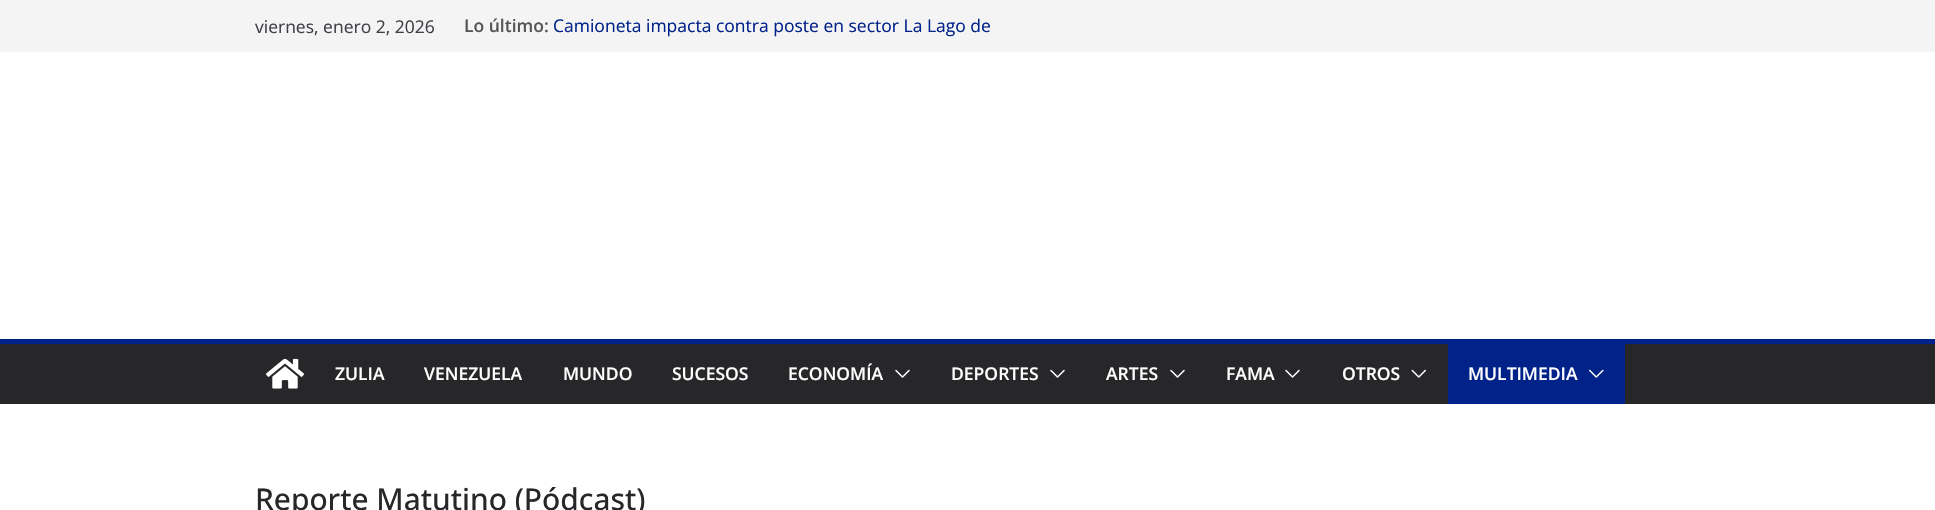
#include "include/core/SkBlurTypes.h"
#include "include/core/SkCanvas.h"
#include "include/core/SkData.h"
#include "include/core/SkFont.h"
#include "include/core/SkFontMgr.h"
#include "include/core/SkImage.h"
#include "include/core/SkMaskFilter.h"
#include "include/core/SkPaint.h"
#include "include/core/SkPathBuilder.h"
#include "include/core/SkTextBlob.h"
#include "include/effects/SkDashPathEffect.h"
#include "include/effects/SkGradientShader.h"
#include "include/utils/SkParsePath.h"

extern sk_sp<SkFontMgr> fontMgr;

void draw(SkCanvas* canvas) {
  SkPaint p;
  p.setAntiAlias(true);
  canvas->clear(SK_ColorWHITE);
  p.setColor(SkColorSetARGB(26, 0, 0, 0));
  p.setMaskFilter(SkMaskFilter::MakeBlur(kNormal_SkBlurStyle, 1));
  canvas->drawRect(SkRect::MakeLTRB(0, 0, 1935, 51), p);
  p.setMaskFilter(nullptr);
  p.setColor(SkColorSetRGB(244, 244, 245));
  canvas->drawRect(SkRect::MakeLTRB(0, 0, 1935, 51), p);
  p.setColor(SkColorSetRGB(39, 39, 42));
  canvas->drawRect(SkRect::MakeLTRB(0, 344, 1935, 404), p);
  p.setColor(SkColorSetRGB(0, 34, 137));
  canvas->drawRect(SkRect::MakeLTRB(0, 339, 1935, 344), p);
  canvas->drawImageRect(SkImages::DeferredFromEncodedData(SkData::MakeFromFileName("images/1.png")), SkRect::MakeLTRB(266, 358, 304, 389), SkSamplingOptions());
  canvas->drawImageRect(SkImages::DeferredFromEncodedData(SkData::MakeFromFileName("images/2.png")), SkRect::MakeLTRB(895, 369, 910, 378), SkSamplingOptions());
  canvas->drawImageRect(SkImages::DeferredFromEncodedData(SkData::MakeFromFileName("images/2.png")), SkRect::MakeLTRB(1050, 369, 1065, 378), SkSamplingOptions());
  canvas->drawImageRect(SkImages::DeferredFromEncodedData(SkData::MakeFromFileName("images/2.png")), SkRect::MakeLTRB(1170, 369, 1185, 378), SkSamplingOptions());
  canvas->drawImageRect(SkImages::DeferredFromEncodedData(SkData::MakeFromFileName("images/2.png")), SkRect::MakeLTRB(1285, 369, 1300, 378), SkSamplingOptions());
  canvas->drawImageRect(SkImages::DeferredFromEncodedData(SkData::MakeFromFileName("images/3.png")), SkRect::MakeLTRB(1411, 369, 1426, 378), SkSamplingOptions());
  canvas->drawRect(SkRect::MakeLTRB(1448, 344, 1625, 404), p);
  canvas->drawImageRect(SkImages::DeferredFromEncodedData(SkData::MakeFromFileName("images/4.png")), SkRect::MakeLTRB(1589, 369, 1604, 378), SkSamplingOptions());
  SkFont font1(fontMgr->matchFamilyStyle("Open Sans", SkFontStyle::Normal()), 17.5f);
  font1.setSubpixel(true);
  p.setColor(SkColorSetRGB(63, 63, 70));
  canvas->drawString("viernes, enero 2, 2026", 255, 33, font1, p);
  SkFont font2(fontMgr->matchFamilyStyle("Open Sans", SkFontStyle(600, SkFontStyle::kNormal_Width, SkFontStyle::kUpright_Slant)), 17.5f);
  font2.setSubpixel(true);
  p.setColor(SkColorSetRGB(85, 85, 85));
  canvas->drawString("Lo último:", 464, 32, font2, p);
  p.setColor(SkColorSetRGB(0, 34, 137));
  canvas->drawString("Camioneta impacta contra poste en sector La Lago de", 553, 32, font1, p);
  p.setColor(SK_ColorWHITE);
  canvas->drawString("ZULIA", 335, 380, font2, p);
  canvas->drawString("VENEZUELA", 424, 380, font2, p);
  canvas->drawString("MUNDO", 563, 380, font2, p);
  canvas->drawString("SUCESOS", 672, 380, font2, p);
  canvas->drawString("ECONOMÍA", 788, 380, font2, p);
  canvas->drawString("DEPORTES", 951, 380, font2, p);
  canvas->drawString("ARTES", 1106, 380, font2, p);
  canvas->drawString("FAMA", 1226, 380, font2, p);
  canvas->drawString("OTROS", 1342, 380, font2, p);
  canvas->drawString("MULTIMEDIA", 1468, 380, font2, p);
  SkFont font3(fontMgr->matchFamilyStyle("Open Sans", SkFontStyle(500, SkFontStyle::kNormal_Width, SkFontStyle::kUpright_Slant)), 30);
  font3.setSubpixel(true);
  p.setColor(SkColorSetRGB(39, 39, 42));
  canvas->drawString("Reporte Matutino (Pódcast)", 255, 510, font3, p);
}
